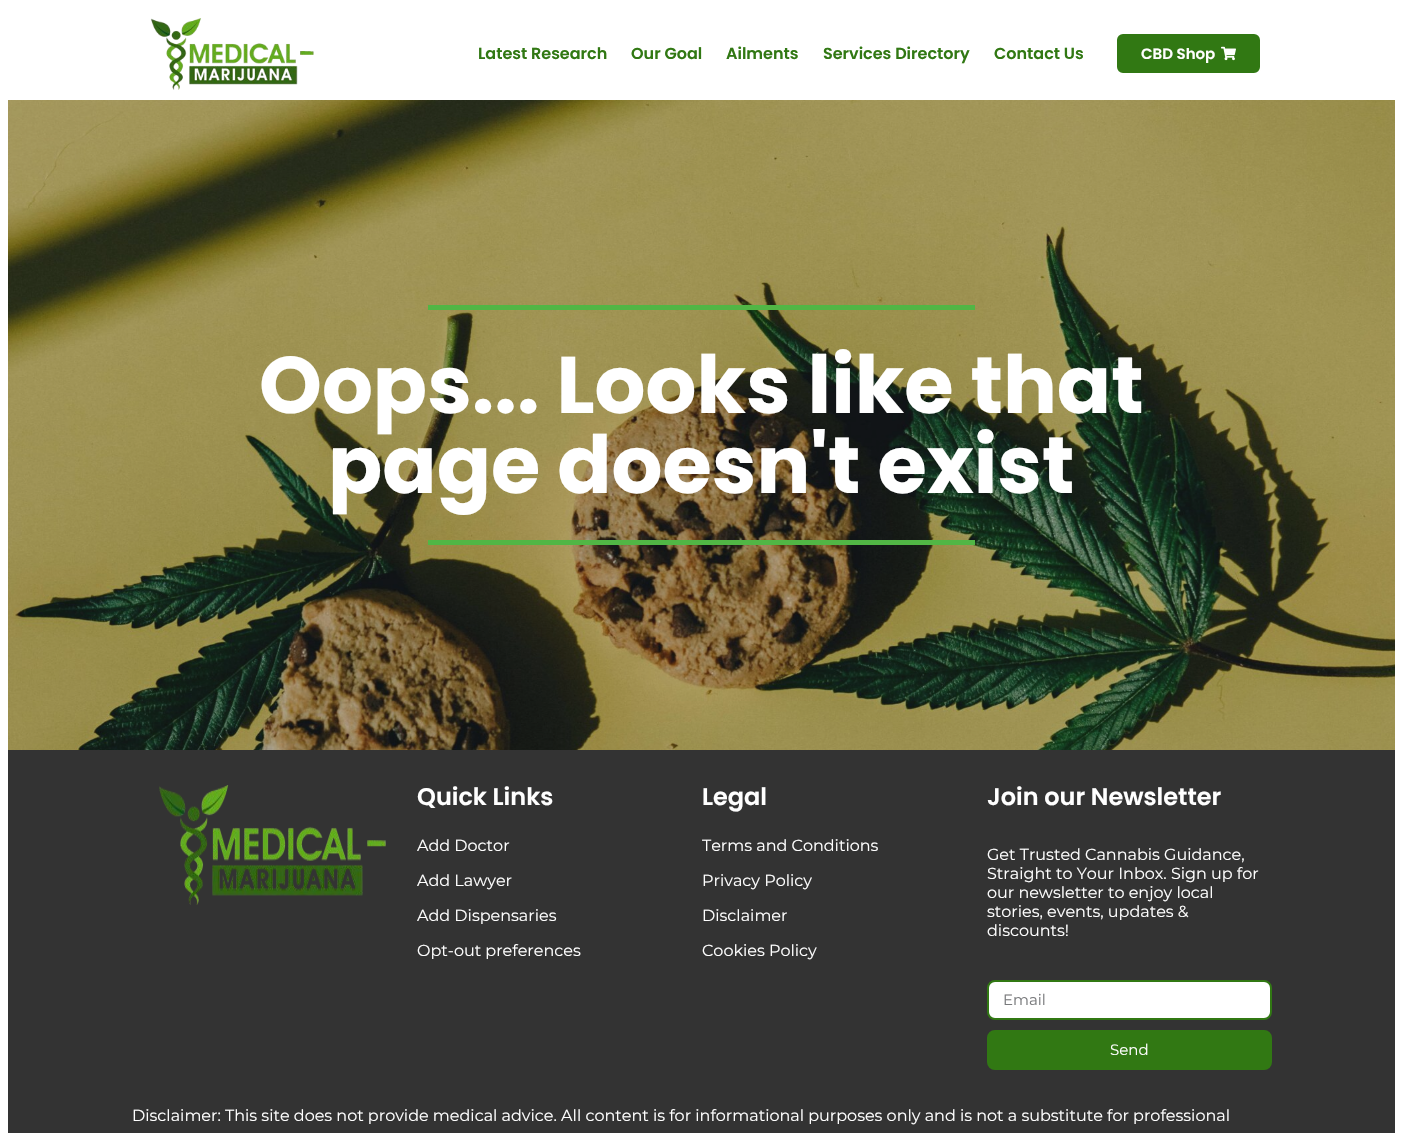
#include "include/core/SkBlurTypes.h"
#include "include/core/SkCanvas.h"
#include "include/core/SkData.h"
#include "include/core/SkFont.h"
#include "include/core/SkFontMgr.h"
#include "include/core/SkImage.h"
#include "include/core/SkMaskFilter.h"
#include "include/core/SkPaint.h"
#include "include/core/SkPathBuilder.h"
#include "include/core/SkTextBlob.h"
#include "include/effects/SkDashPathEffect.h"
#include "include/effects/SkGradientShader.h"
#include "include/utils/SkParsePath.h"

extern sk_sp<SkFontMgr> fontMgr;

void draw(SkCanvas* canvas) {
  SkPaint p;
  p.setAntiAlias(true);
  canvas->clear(SK_ColorWHITE);
  canvas->drawImageRect(SkImages::DeferredFromEncodedData(SkData::MakeFromFileName("images/1.png")), SkRect::MakeLTRB(150, 18, 314, 90), SkSamplingOptions());
  p.setColor(SkColorSetRGB(49, 120, 19));
  canvas->drawRoundRect(SkRect::MakeLTRB(1116, 33, 1261, 74), 7, 7, p);
  p.setStyle(SkPaint::kStroke_Style);
  p.setStrokeWidth(2);
  p.setColor(SK_ColorWHITE);
  canvas->drawRoundRect(SkRect::MakeLTRB(1116, 33, 1261, 74), 7, 7, p);
  canvas->drawImageRect(SkImages::DeferredFromEncodedData(SkData::MakeFromFileName("images/2.png")), SkRect::MakeLTRB(1221, 46, 1236, 61), SkSamplingOptions());
  canvas->drawImageRect(SkImages::DeferredFromEncodedData(SkData::MakeFromFileName("images/3.png")), SkRect::MakeLTRB(8, 100, 1395, 750), SkSamplingOptions());
  p.setStyle(SkPaint::kFill_Style);
  p.setColor(SkColorSetRGB(81, 182, 69));
  canvas->drawRect(SkRect::MakeLTRB(428, 305, 975, 310), p);
  canvas->drawRect(SkRect::MakeLTRB(428, 540, 975, 545), p);
  p.setColor(SkColorSetRGB(51, 51, 51));
  canvas->drawRect(SkRect::MakeLTRB(8, 750, 1395, 1133), p);
  canvas->drawImageRect(SkImages::DeferredFromEncodedData(SkData::MakeFromFileName("images/4.png")), SkRect::MakeLTRB(159, 785, 386, 905), SkSamplingOptions());
  p.setColor(SK_ColorWHITE);
  canvas->drawRoundRect(SkRect::MakeLTRB(988, 981, 1271, 1019), 7, 7, p);
  p.setStyle(SkPaint::kStroke_Style);
  p.setColor(SkColorSetRGB(49, 120, 19));
  canvas->drawRoundRect(SkRect::MakeLTRB(988, 981, 1271, 1019), 7, 7, p);
  p.setStyle(SkPaint::kFill_Style);
  canvas->drawRoundRect(SkRect::MakeLTRB(988, 1031, 1271, 1069), 7, 7, p);
  p.setStyle(SkPaint::kStroke_Style);
  canvas->drawRoundRect(SkRect::MakeLTRB(988, 1031, 1271, 1069), 7, 7, p);
  SkFont font1(fontMgr->matchFamilyStyle("Poppins", SkFontStyle(600, SkFontStyle::kNormal_Width, SkFontStyle::kUpright_Slant)), 16);
  font1.setSubpixel(true);
  p.setStyle(SkPaint::kFill_Style);
  canvas->drawString("Latest Research", 478, 59, font1, p);
  canvas->drawString("Our Goal", 631, 59, font1, p);
  canvas->drawString("Ailments", 726, 59, font1, p);
  canvas->drawString("Services Directory", 823, 59, font1, p);
  canvas->drawString("Contact Us", 994, 59, font1, p);
  SkFont font2(fontMgr->matchFamilyStyle("Poppins", SkFontStyle(600, SkFontStyle::kNormal_Width, SkFontStyle::kUpright_Slant)), 15);
  font2.setSubpixel(true);
  p.setColor(SK_ColorWHITE);
  canvas->drawString("CBD Shop", 1141, 59, font2, p);
  SkFont font3(fontMgr->matchFamilyStyle("Poppins", SkFontStyle::Bold()), 80);
  font3.setSubpixel(true);
  canvas->drawString("Oops... Looks like that", 259, 413, font3, p);
  canvas->drawString("page doesn't exist", 328, 493, font3, p);
  SkFont font4(fontMgr->matchFamilyStyle("Poppins", SkFontStyle(600, SkFontStyle::kNormal_Width, SkFontStyle::kUpright_Slant)), 24);
  font4.setSubpixel(true);
  canvas->drawString("Quick Links", 417, 805, font4, p);
  SkFont font5(fontMgr->matchFamilyStyle("Montserrat", SkFontStyle::Normal()), 16);
  font5.setSubpixel(true);
  canvas->drawString("Add Doctor", 417, 851, font5, p);
  canvas->drawString("Add Lawyer", 417, 886, font5, p);
  canvas->drawString("Add Dispensaries", 417, 921, font5, p);
  canvas->drawString("Opt-out preferences", 417, 956, font5, p);
  canvas->drawString("Legal", 702, 805, font4, p);
  canvas->drawString("Terms and Conditions", 702, 851, font5, p);
  canvas->drawString("Privacy Policy", 702, 886, font5, p);
  canvas->drawString("Disclaimer", 702, 921, font5, p);
  canvas->drawString("Cookies Policy", 702, 956, font5, p);
  canvas->drawString("Join our Newsletter", 987, 805, font4, p);
  canvas->drawString("Get Trusted Cannabis Guidance,", 987, 860, font5, p);
  canvas->drawString("Straight to Your Inbox. Sign up for", 987, 879, font5, p);
  canvas->drawString("our newsletter to enjoy local", 987, 898, font5, p);
  canvas->drawString("stories, events, updates &", 987, 917, font5, p);
  canvas->drawString("discounts!", 987, 936, font5, p);
  SkFont font6(fontMgr->matchFamilyStyle("Montserrat", SkFontStyle::Normal()), 15);
  font6.setSubpixel(true);
  p.setColor(SkColorSetRGB(121, 122, 124));
  canvas->drawString("Email", 1003, 1005, font6, p);
  p.setColor(SK_ColorWHITE);
  canvas->drawString("Send", 1110, 1055, font6, p);
  canvas->drawString("Disclaimer: This site does not provide medical advice. All content is for informational purposes only and is not a substitute for professional", 132, 1121, font5, p);
}
